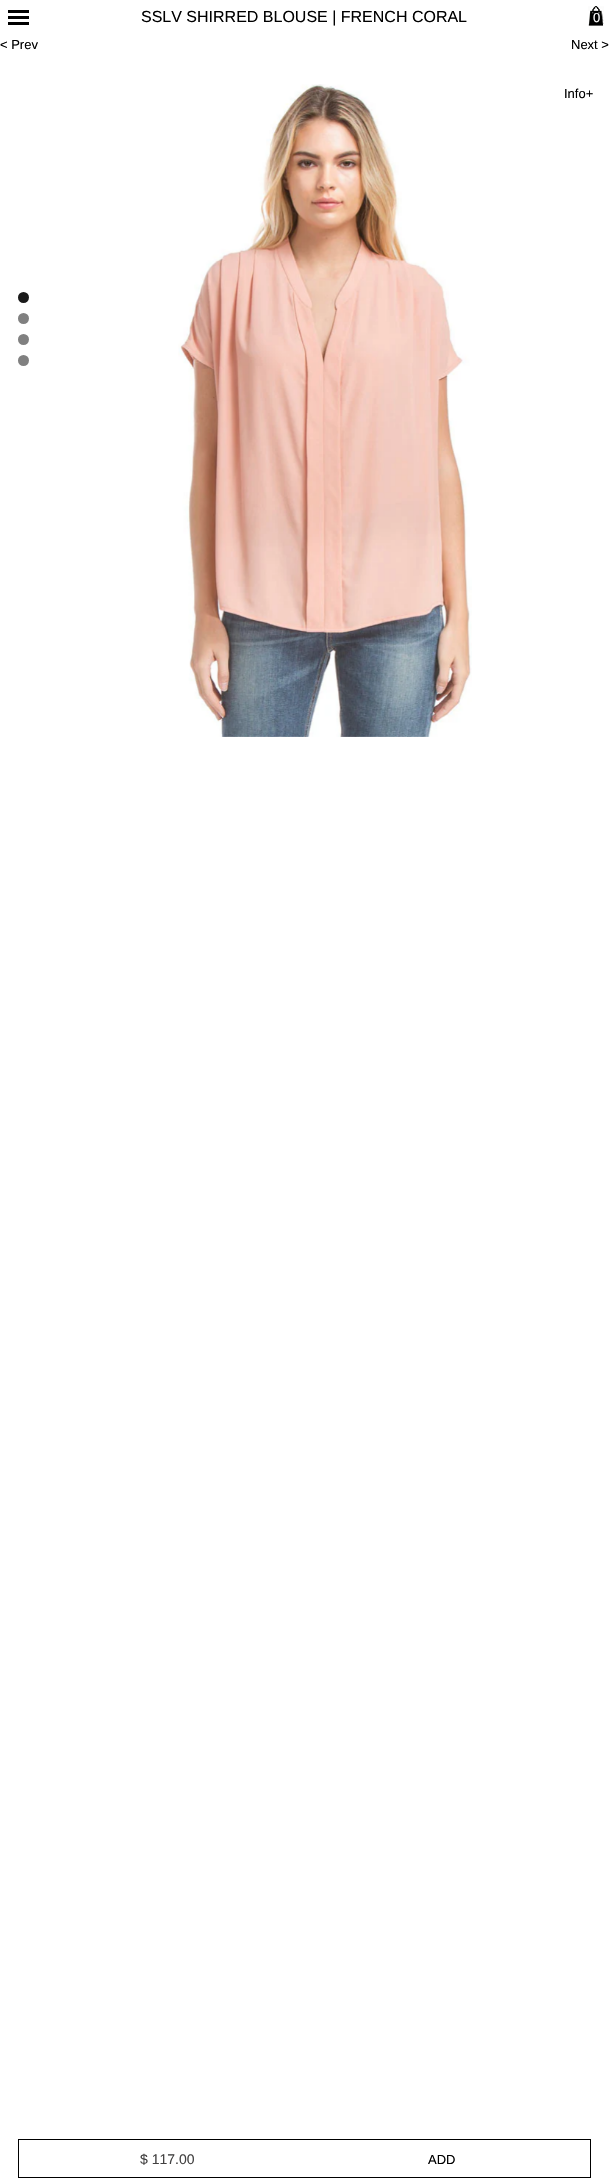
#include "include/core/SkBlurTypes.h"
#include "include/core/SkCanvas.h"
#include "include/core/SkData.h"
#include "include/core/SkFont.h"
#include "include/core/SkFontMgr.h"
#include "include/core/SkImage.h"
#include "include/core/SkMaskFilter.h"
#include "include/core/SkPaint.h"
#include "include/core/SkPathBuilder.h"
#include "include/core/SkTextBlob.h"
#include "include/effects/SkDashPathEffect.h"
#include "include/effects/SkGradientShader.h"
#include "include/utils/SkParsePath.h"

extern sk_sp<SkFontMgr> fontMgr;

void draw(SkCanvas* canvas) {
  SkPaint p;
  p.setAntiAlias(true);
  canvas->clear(SK_ColorWHITE);
  canvas->drawImageRect(SkImages::DeferredFromEncodedData(SkData::MakeFromFileName("images/1.png")), SkRect::MakeLTRB(8, 10, 29, 25), SkSamplingOptions());
  canvas->drawImageRect(SkImages::DeferredFromEncodedData(SkData::MakeFromFileName("images/2.png")), SkRect::MakeLTRB(588, 6, 604, 26), SkSamplingOptions());
  p.setColor(SkColorSetRGB(26, 26, 26));
  canvas->drawCircle(23.5f, 297.5f, 5.5f, p);
  p.setColor(SkColorSetRGB(128, 128, 128));
  canvas->drawCircle(23.5f, 318.5f, 5.5f, p);
  canvas->drawCircle(23.5f, 339.5f, 5.5f, p);
  canvas->drawCircle(23.5f, 360.5f, 5.5f, p);
  canvas->drawImageRect(SkImages::DeferredFromEncodedData(SkData::MakeFromFileName("images/3.png")), SkRect::MakeLTRB(178, 84, 472, 737), SkSamplingOptions());
  p.setColor(SkColorSetARGB(28, 255, 255, 255));
  canvas->drawRect(SkRect::MakeLTRB(222, 736, 429, 737), p);
  p.setStyle(SkPaint::kStroke_Style);
  p.setStrokeWidth(1);
  p.setColor(SK_ColorBLACK);
  canvas->drawRect(SkRect::MakeLTRB(18.5f, 2139.5f, 590.5f, 2177.5f), p);
  SkFont font1(fontMgr->matchFamilyStyle("Liberation Sans", SkFontStyle::Normal()), 16);
  font1.setSubpixel(true);
  p.setStyle(SkPaint::kFill_Style);
  canvas->drawString("SSLV SHIRRED BLOUSE | FRENCH CORAL", 141, 22, font1, p);
  SkFont font2(fontMgr->matchFamilyStyle("Liberation Sans", SkFontStyle::Normal()), 13);
  font2.setSubpixel(true);
  p.setColor(SK_ColorWHITE);
  canvas->drawString("0", 593, 22, font2, p);
  p.setColor(SK_ColorBLACK);
  canvas->drawString("< Prev", 0, 49, font2, p);
  canvas->drawString("Next >", 571, 49, font2, p);
  canvas->drawString("Info+", 564, 98, font2, p);
  SkFont font3(fontMgr->matchFamilyStyle("Liberation Sans", SkFontStyle::Normal()), 14);
  font3.setSubpixel(true);
  p.setColor(SkColorSetRGB(66, 65, 65));
  canvas->drawString("$ 117.00", 140, 2164, font3, p);
  p.setColor(SK_ColorBLACK);
  canvas->drawString("ADD", 428, 2164, font2, p);
}
